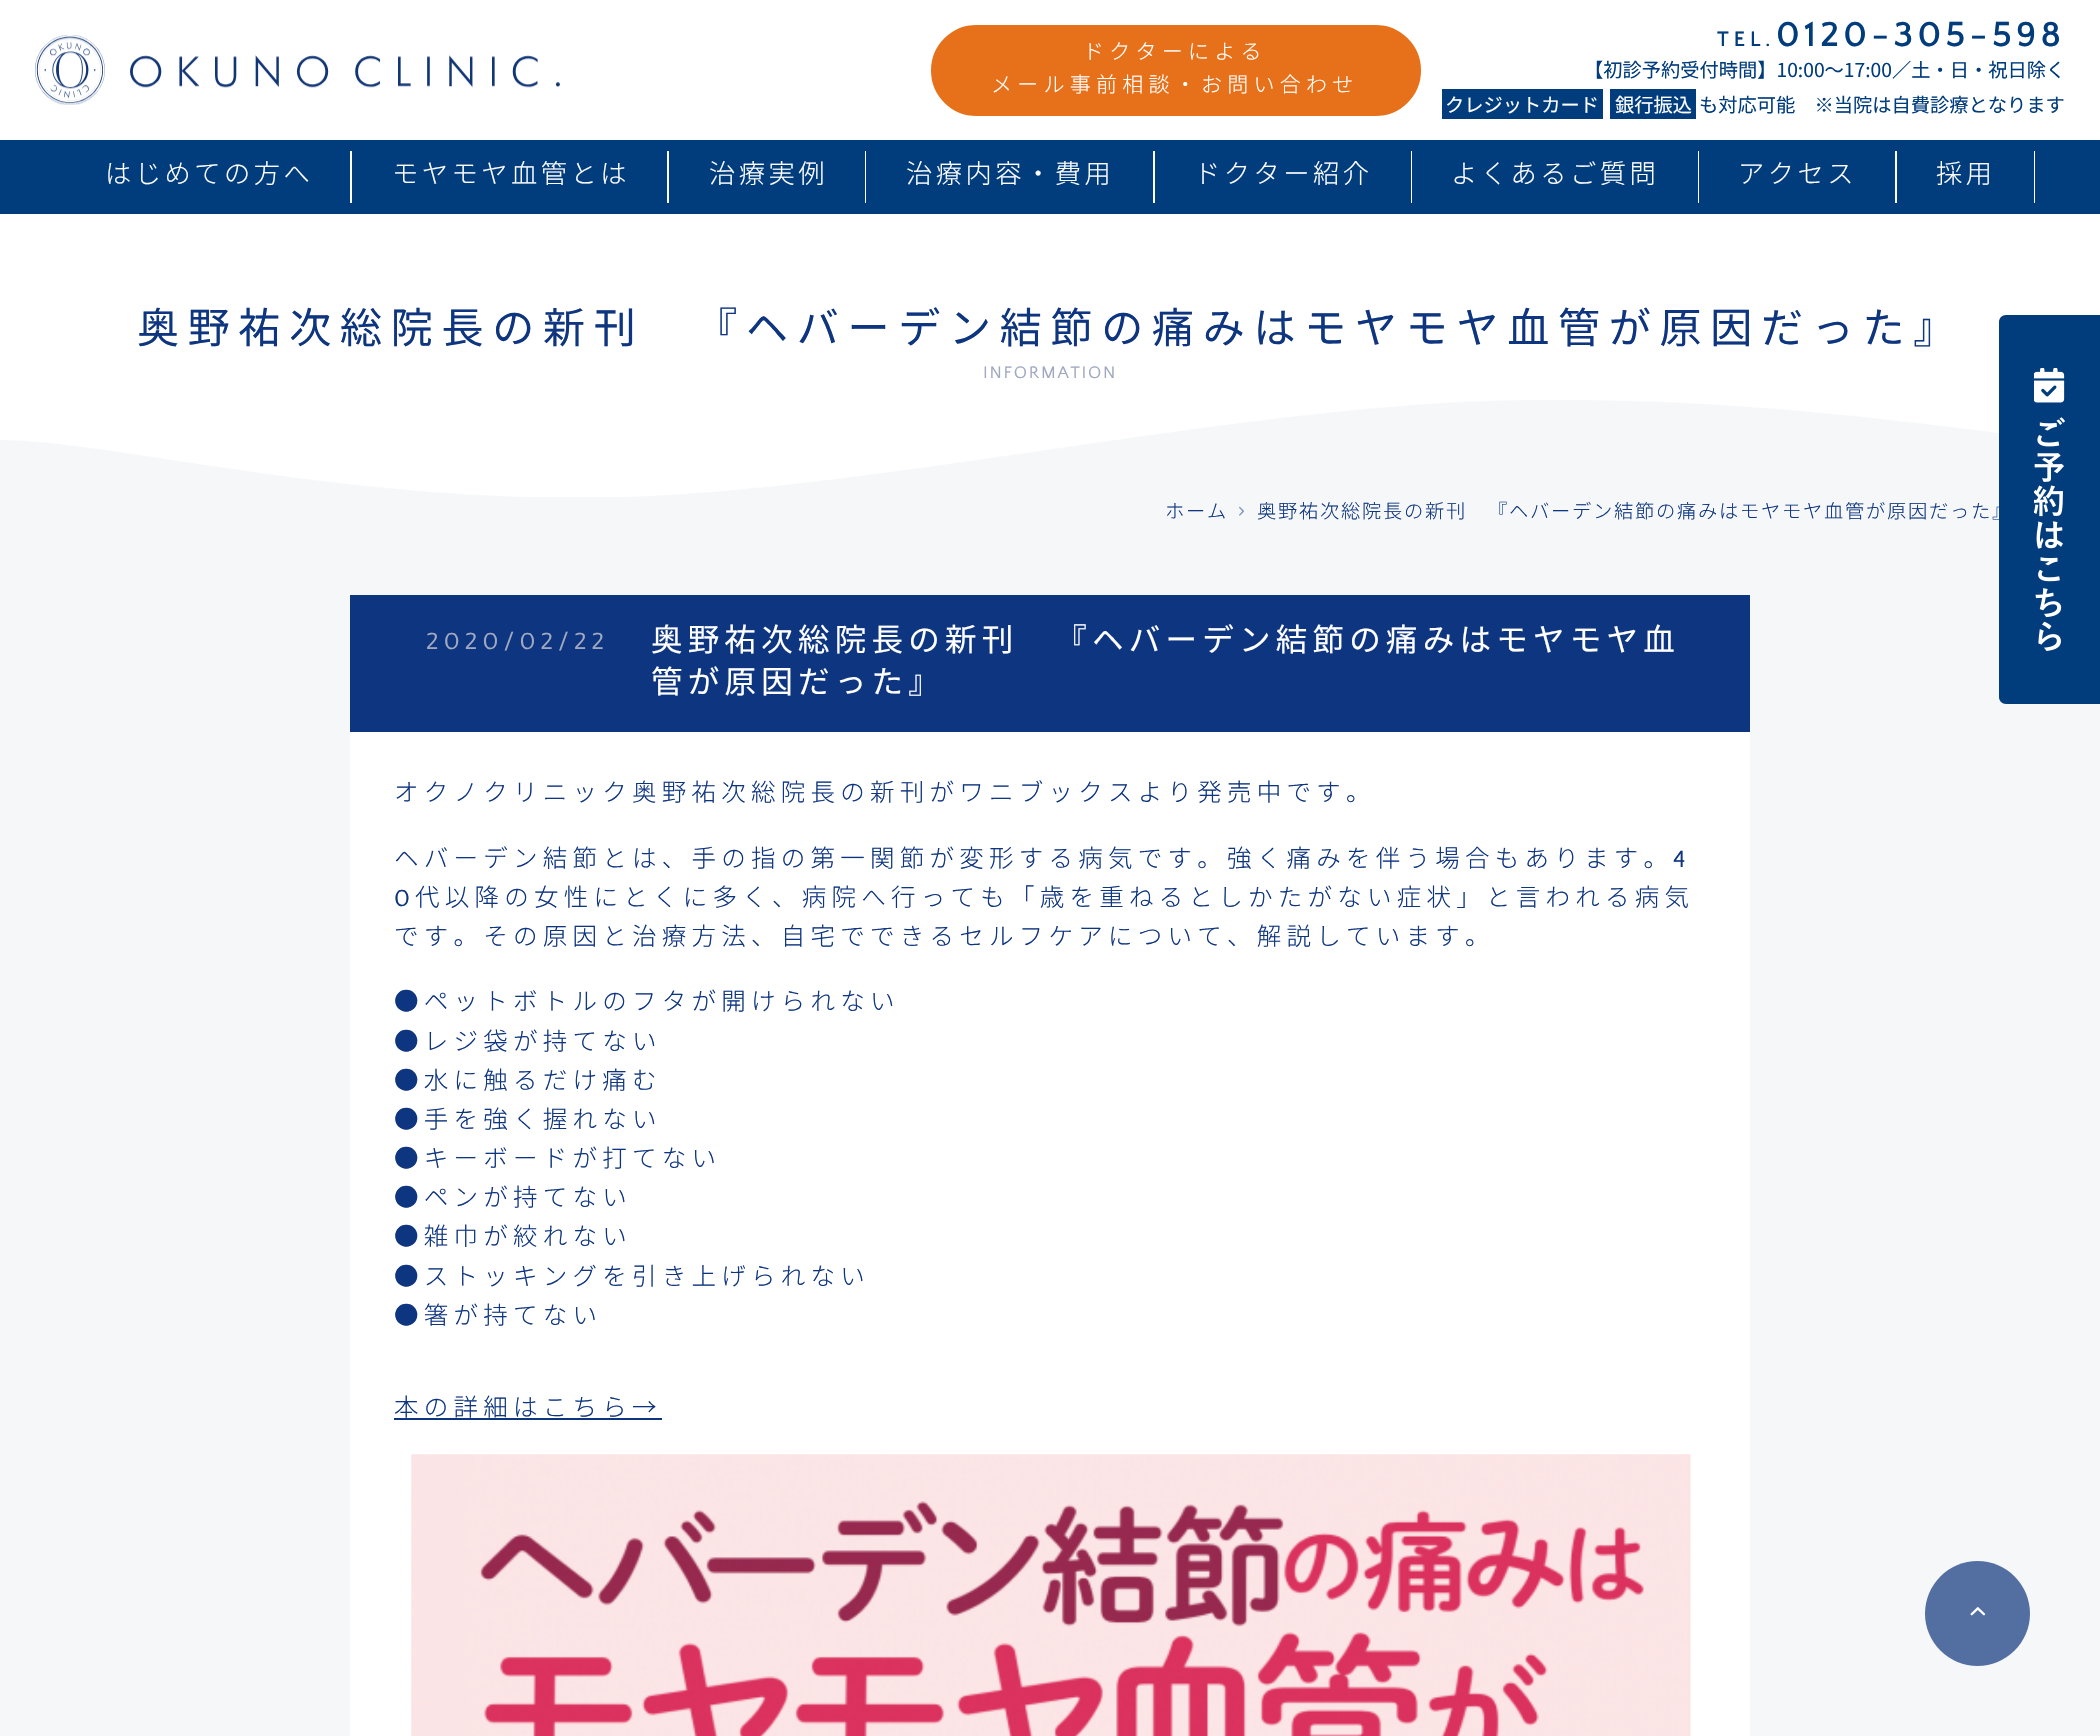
#include "include/core/SkBlurTypes.h"
#include "include/core/SkCanvas.h"
#include "include/core/SkData.h"
#include "include/core/SkFont.h"
#include "include/core/SkFontMgr.h"
#include "include/core/SkImage.h"
#include "include/core/SkMaskFilter.h"
#include "include/core/SkPaint.h"
#include "include/core/SkPathBuilder.h"
#include "include/core/SkTextBlob.h"
#include "include/effects/SkDashPathEffect.h"
#include "include/effects/SkGradientShader.h"
#include "include/utils/SkParsePath.h"

extern sk_sp<SkFontMgr> fontMgr;

void draw(SkCanvas* canvas) {
  SkPaint p;
  p.setAntiAlias(true);
  auto spacedText = [&](const char* s, float x, float y, const SkFont& font, const SkPaint& ink, float letter, float word) {
    std::vector<SkGlyphID> glyphs(font.countText(s, strlen(s), SkTextEncoding::kUTF8));
    std::vector<float> xs(glyphs.size());
    font.textToGlyphs(s, strlen(s), SkTextEncoding::kUTF8, glyphs);
    font.getXPos(glyphs, xs, x);
    float extra = 0;
    for (size_t i = 0; i < glyphs.size(); i++) {
      xs[i] += extra;
      extra += letter + word * (glyphs[i] == font.unicharToGlyph(' '));
    }
    canvas->drawTextBlob(SkTextBlob::MakeFromPosHGlyphs(glyphs, xs, y, font), 0, 0, ink);
  };
  canvas->clear(SK_ColorWHITE);
  canvas->drawImageRect(SkImages::DeferredFromEncodedData(SkData::MakeFromFileName("images/1.png")), SkRect::MakeLTRB(35, 35, 560, 105), SkSamplingOptions());
  p.setColor(SkColorSetRGB(231, 113, 27));
  canvas->drawRoundRect(SkRect::MakeLTRB(932, 26, 1420, 115), 44.5f, 44.5f, p);
  p.setStyle(SkPaint::kStroke_Style);
  p.setStrokeWidth(2);
  canvas->drawRoundRect(SkRect::MakeLTRB(932, 26, 1420, 115), 44.5f, 44.5f, p);
  p.setStyle(SkPaint::kFill_Style);
  p.setColor(SkColorSetRGB(1, 60, 124));
  canvas->drawRect(SkRect::MakeLTRB(1442, 89, 1603, 119), p);
  canvas->drawRect(SkRect::MakeLTRB(1610, 89, 1696, 119), p);
  canvas->drawRect(SkRect::MakeLTRB(0, 140, 2100, 214), p);
  p.setColor(SK_ColorWHITE);
  canvas->drawRect(SkRect::MakeLTRB(350, 151, 352, 203), p);
  canvas->drawRect(SkRect::MakeLTRB(667, 151, 669, 203), p);
  canvas->drawRect(SkRect::MakeLTRB(865, 151, 866, 203), p);
  canvas->drawRect(SkRect::MakeLTRB(1153, 151, 1155, 203), p);
  canvas->drawRect(SkRect::MakeLTRB(1411, 151, 1412, 203), p);
  canvas->drawRect(SkRect::MakeLTRB(1698, 151, 1699, 203), p);
  canvas->drawRect(SkRect::MakeLTRB(1895, 151, 1897, 203), p);
  canvas->drawRect(SkRect::MakeLTRB(2034, 151, 2035, 203), p);
  p.setColor(SkColorSetRGB(245, 247, 249));
  canvas->drawRect(SkRect::MakeLTRB(0, 399, 2100, 1736), p);
  canvas->drawImageRect(SkImages::DeferredFromEncodedData(SkData::MakeFromFileName("images/2.png")), SkRect::MakeLTRB(0, 392, 1999, 497), SkSamplingOptions());
  canvas->drawImageRect(SkImages::DeferredFromEncodedData(SkData::MakeFromFileName("images/3.png")), SkRect::MakeLTRB(1239, 506, 1244, 516), SkSamplingOptions());
  p.setColor(SkColorSetRGB(14, 53, 127));
  canvas->drawRect(SkRect::MakeLTRB(350, 595, 1750, 732), p);
  p.setColor(SK_ColorWHITE);
  canvas->drawRect(SkRect::MakeLTRB(350, 732, 1750, 1736), p);
  p.setColor(SkColorSetRGB(14, 53, 127));
  canvas->drawRect(SkRect::MakeLTRB(394, 1418, 662, 1420), p);
  canvas->drawImageRect(SkImages::DeferredFromEncodedData(SkData::MakeFromFileName("images/4.png")), SkRect::MakeLTRB(411, 1454, 1691, 1736), SkSamplingOptions());
  p.setColor(SkColorSetRGB(83, 111, 162));
  canvas->drawCircle(1977.5f, 1613.5f, 52.5f, p);
  canvas->drawImageRect(SkImages::DeferredFromEncodedData(SkData::MakeFromFileName("images/6.png")), SkRect::MakeLTRB(1970, 1607, 1986, 1616), SkSamplingOptions());
  SkFont font1(fontMgr->matchFamilyStyle("Noto Sans JP", SkFontStyle(300, SkFontStyle::kNormal_Width, SkFontStyle::kUpright_Slant)), 21);
  font1.setSubpixel(true);
  p.setColor(SK_ColorWHITE);
  spacedText("ドクターによる", 1083, 59, font1, p, 5.25f, 0);
  spacedText("メール事前相談・お問い合わせ", 991, 92, font1, p, 5.25f, 0);
  SkFont font2(fontMgr->matchFamilyStyle("Quattrocento Sans", SkFontStyle::Bold()), 21);
  font2.setSubpixel(true);
  p.setColor(SkColorSetRGB(1, 60, 124));
  spacedText("TEL.", 1717, 46, font2, p, 5.25f, 0);
  SkFont font3(fontMgr->matchFamilyStyle("Quattrocento Sans", SkFontStyle::Bold()), 35);
  font3.setSubpixel(true);
  spacedText("0120-305-598", 1776, 46, font3, p, 5.25f, 0);
  SkFont font4(fontMgr->matchFamilyStyle("Noto Sans JP", SkFontStyle::Normal()), 19.25f);
  font4.setSubpixel(true);
  canvas->drawString("【初診予約受付時間】10:00〜17:00／土・日・祝日除く", 1584, 77, font4, p);
  p.setColor(SK_ColorWHITE);
  canvas->drawString("クレジットカード", 1445, 112, font4, p);
  canvas->drawString("銀行振込", 1615, 112, font4, p);
  p.setColor(SkColorSetRGB(1, 60, 124));
  canvas->drawString("も対応可能　※当院は自費診療となります", 1699, 112, font4, p);
  SkFont font5(fontMgr->matchFamilyStyle("Noto Sans JP", SkFontStyle(300, SkFontStyle::kNormal_Width, SkFontStyle::kUpright_Slant)), 26.25f);
  font5.setSubpixel(true);
  p.setColor(SK_ColorWHITE);
  spacedText("はじめての方へ", 105, 183, font5, p, 3.5f, 0);
  spacedText("モヤモヤ血管とは", 392, 183, font5, p, 3.5f, 0);
  spacedText("治療実例", 709, 183, font5, p, 3.5f, 0);
  spacedText("治療内容・費用", 906, 183, font5, p, 3.5f, 0);
  spacedText("ドクター紹介", 1194, 183, font5, p, 3.5f, 0);
  spacedText("よくあるご質問", 1451, 183, font5, p, 3.5f, 0);
  spacedText("アクセス", 1738, 183, font5, p, 3.5f, 0);
  spacedText("採用", 1936, 183, font5, p, 3.5f, 0);
  SkFont font6(fontMgr->matchFamilyStyle("Noto Sans JP", SkFontStyle::Normal()), 42);
  font6.setSubpixel(true);
  p.setColor(SkColorSetRGB(14, 53, 127));
  spacedText("奥野祐次総院長の新刊　『ヘバーデン結節の痛みはモヤモヤ血管が原因だった』", 137, 343, font6, p, 8.75f, 0);
  SkFont font7(fontMgr->matchFamilyStyle("Quattrocento Sans", SkFontStyle::Normal()), 17.5f);
  font7.setSubpixel(true);
  p.setColor(SkColorSetRGB(160, 169, 193));
  spacedText("INFORMATION", 983, 378, font7, p, 1.75f, 0);
  SkFont font8(fontMgr->matchFamilyStyle("Noto Sans JP", SkFontStyle(300, SkFontStyle::kNormal_Width, SkFontStyle::kUpright_Slant)), 19.25f);
  font8.setSubpixel(true);
  p.setColor(SkColorSetRGB(14, 53, 127));
  spacedText("ホーム", 1165, 518, font8, p, 1.75f, 0);
  spacedText("奥野祐次総院長の新刊　『ヘバーデン結節の痛みはモヤモヤ血管が原因だった』", 1257, 518, font8, p, 1.75f, 0);
  SkFont font9(fontMgr->matchFamilyStyle("Quattrocento Sans", SkFontStyle::Normal()), 24.5f);
  font9.setSubpixel(true);
  p.setColor(SkColorSetRGB(160, 169, 193));
  spacedText("2020/02/22", 426, 649, font9, p, 5.25f, 0);
  SkFont font10(fontMgr->matchFamilyStyle("Noto Sans JP", SkFontStyle::Normal()), 31.5f);
  font10.setSubpixel(true);
  p.setColor(SK_ColorWHITE);
  spacedText("奥野祐次総院長の新刊　『ヘバーデン結節の痛みはモヤモヤ血", 651, 651, font10, p, 5.25f, 0);
  spacedText("管が原因だった』", 651, 693, font10, p, 5.25f, 0);
  SkFont font11(fontMgr->matchFamilyStyle("Noto Sans JP", SkFontStyle(300, SkFontStyle::kNormal_Width, SkFontStyle::kUpright_Slant)), 24.5f);
  font11.setSubpixel(true);
  p.setColor(SkColorSetRGB(14, 53, 127));
  spacedText("オクノクリニック奥野祐次総院長の新刊がワニブックスより発売中です。", 394, 801, font11, p, 5.25f, 0);
  spacedText("ヘバーデン結節とは、手の指の第一関節が変形する病気です。強く痛みを伴う場合もあります。", 394, 867, font11, p, 5.25f, 0);
  spacedText("4", 1673, 867, font9, p, 5.25f, 0);
  spacedText("0", 394, 906, font9, p, 5.25f, 0);
  spacedText("代以降の女性にとくに多く、病院へ行っても「歳を重ねるとしかたがない症状」と言われる病気", 415, 906, font11, p, 5.25f, 0);
  spacedText("です。その原因と治療方法、自宅でできるセルフケアについて、解説しています。", 394, 945, font11, p, 5.25f, 0);
  spacedText("●ペットボトルのフタが開けられない", 394, 1010, font11, p, 5.25f, 0);
  spacedText("●レジ袋が持てない", 394, 1050, font11, p, 5.25f, 0);
  spacedText("●水に触るだけ痛む", 394, 1089, font11, p, 5.25f, 0);
  spacedText("●手を強く握れない", 394, 1128, font11, p, 5.25f, 0);
  spacedText("●キーボードが打てない", 394, 1167, font11, p, 5.25f, 0);
  spacedText("●ペンが持てない", 394, 1206, font11, p, 5.25f, 0);
  spacedText("●雑巾が絞れない", 394, 1245, font11, p, 5.25f, 0);
  spacedText("●ストッキングを引き上げられない", 394, 1285, font11, p, 5.25f, 0);
  spacedText("●箸が持てない", 394, 1324, font11, p, 5.25f, 0);
  spacedText("本の詳細はこちら→", 394, 1416, font11, p, 5.25f, 0);
  p.setColor(SkColorSetRGB(1, 60, 124));
  canvas->drawPath(SkPathBuilder().moveTo(2006, 315).lineTo(2100, 315).lineTo(2100, 704).lineTo(2006, 704).cubicTo(2002, 704, 1999, 701, 1999, 697).lineTo(1999, 322).cubicTo(1999, 318, 2002, 315, 2006, 315).close().detach(), p);
  canvas->drawImageRect(SkImages::DeferredFromEncodedData(SkData::MakeFromFileName("images/5.png")), SkRect::MakeLTRB(2034, 368, 2065, 651), SkSamplingOptions());
}
